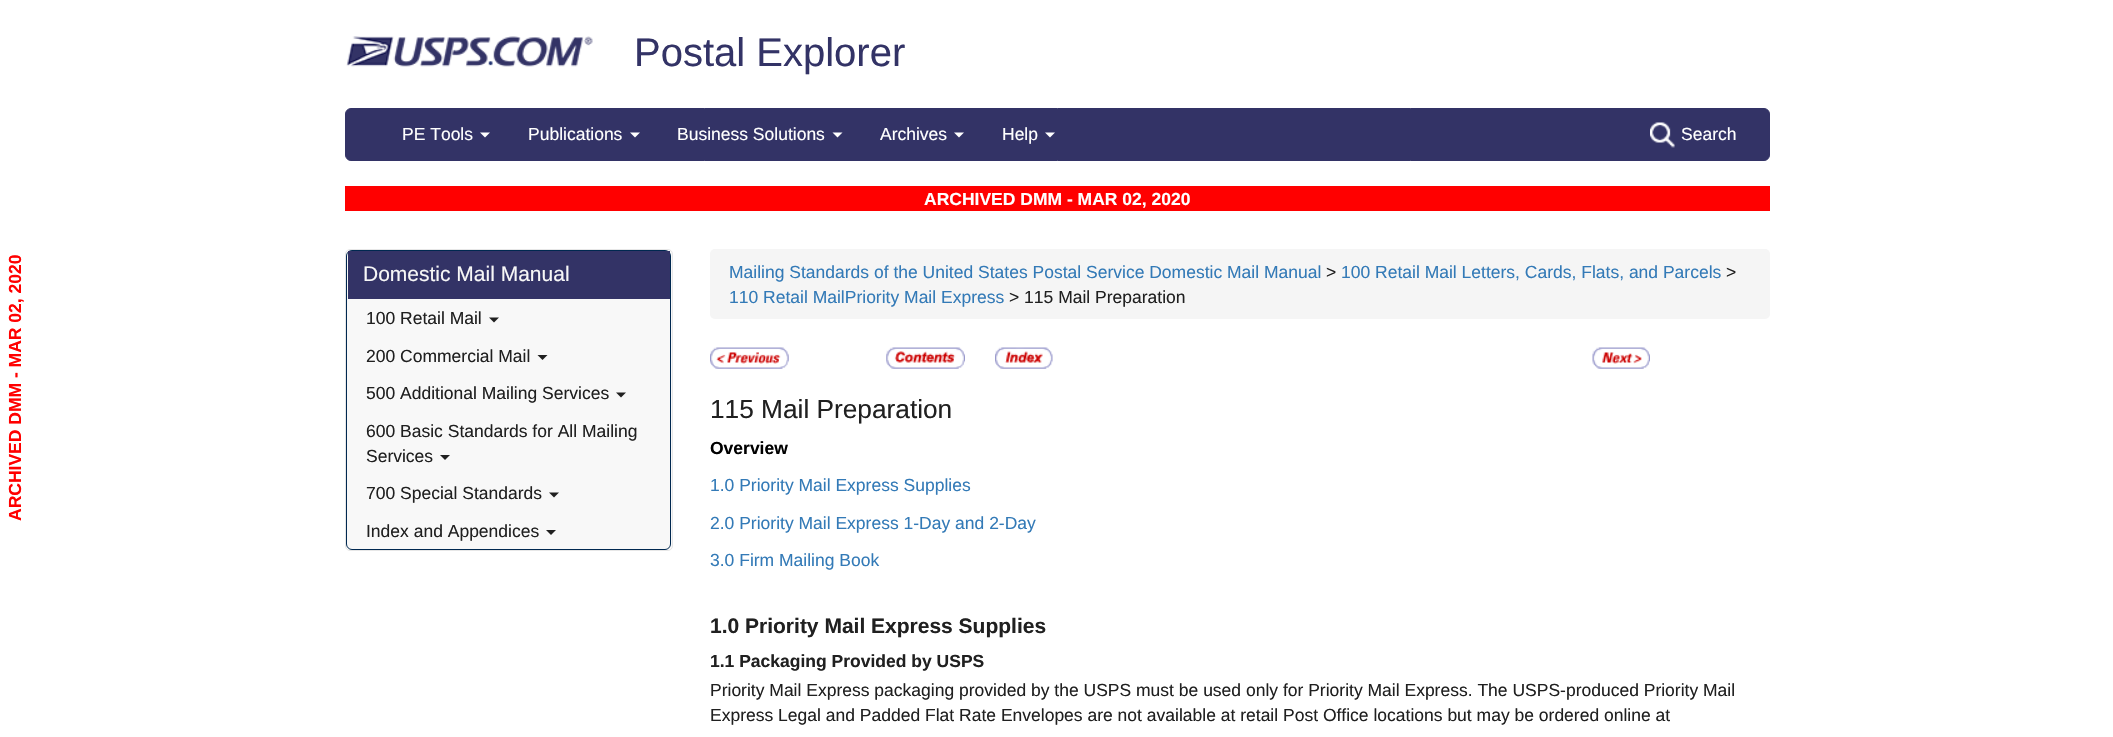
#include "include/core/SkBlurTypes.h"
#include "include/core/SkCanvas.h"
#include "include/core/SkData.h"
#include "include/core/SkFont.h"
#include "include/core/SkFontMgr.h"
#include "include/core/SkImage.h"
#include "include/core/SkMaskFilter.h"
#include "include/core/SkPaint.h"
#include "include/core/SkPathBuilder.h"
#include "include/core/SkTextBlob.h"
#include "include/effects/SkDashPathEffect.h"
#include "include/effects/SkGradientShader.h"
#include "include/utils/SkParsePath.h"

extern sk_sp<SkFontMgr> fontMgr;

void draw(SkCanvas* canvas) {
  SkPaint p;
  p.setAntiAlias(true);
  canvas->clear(SK_ColorWHITE);
  canvas->drawImageRect(SkImages::DeferredFromEncodedData(SkData::MakeFromFileName("images/1.png")), SkRect::MakeLTRB(346, 36, 593, 67), SkSamplingOptions());
  p.setColor(SkColorSetRGB(51, 51, 102));
  canvas->drawRoundRect(SkRect::MakeLTRB(345.5f, 108.5f, 1769.5f, 160.5f), 5.5f, 5.5f, p);
  p.setStyle(SkPaint::kStroke_Style);
  p.setStrokeWidth(1);
  canvas->drawRoundRect(SkRect::MakeLTRB(345.5f, 108.5f, 1769.5f, 160.5f), 5.5f, 5.5f, p);
  p.setStyle(SkPaint::kFill_Style);
  p.setColor(SK_ColorWHITE);
  canvas->drawPath(SkPathBuilder().moveTo(480, 132.5f).lineTo(490, 132.5f).lineTo(485, 137.5f).close().detach(), p);
  canvas->drawPath(SkPathBuilder().moveTo(630, 132.5f).lineTo(640, 132.5f).lineTo(635, 137.5f).close().detach(), p);
  canvas->drawPath(SkPathBuilder().moveTo(832.5f, 132.5f).lineTo(842.5f, 132.5f).lineTo(837.5f, 137.5f).close().detach(), p);
  canvas->drawPath(SkPathBuilder().moveTo(954, 132.5f).lineTo(964, 132.5f).lineTo(959, 137.5f).close().detach(), p);
  canvas->drawPath(SkPathBuilder().moveTo(1045, 132.5f).lineTo(1055, 132.5f).lineTo(1050, 137.5f).close().detach(), p);
  canvas->drawImageRect(SkImages::DeferredFromEncodedData(SkData::MakeFromFileName("images/2.png")), SkRect::MakeLTRB(1650, 122, 1675, 148), SkSamplingOptions());
  p.setColor(SkColorSetRGB(255, 0, 0));
  canvas->drawRect(SkRect::MakeLTRB(345, 186, 1770, 211), p);
  p.setColor(SkColorSetRGB(248, 248, 248));
  canvas->drawRoundRect(SkRect::MakeLTRB(345.5f, 249.5f, 672.5f, 550.5f), 4.5f, 4.5f, p);
  p.setStyle(SkPaint::kStroke_Style);
  p.setColor(SkColorSetRGB(231, 231, 231));
  canvas->drawRoundRect(SkRect::MakeLTRB(345.5f, 249.5f, 672.5f, 550.5f), 4.5f, 4.5f, p);
  p.setColor(SkColorSetRGB(0, 40, 80));
  canvas->drawRoundRect(SkRect::MakeLTRB(346.5f, 250.5f, 670.5f, 549.5f), 5.5f, 5.5f, p);
  p.setStyle(SkPaint::kFill_Style);
  p.setColor(SkColorSetRGB(51, 51, 102));
  canvas->drawRect(SkRect::MakeLTRB(348, 251, 670, 299), p);
  p.setColor(SkColorSetRGB(32, 32, 32));
  canvas->drawPath(SkPathBuilder().moveTo(489, 317.5f).lineTo(499, 317.5f).lineTo(494, 322.5f).close().detach(), p);
  canvas->drawPath(SkPathBuilder().moveTo(537.5f, 355).lineTo(547.5f, 355).lineTo(542.5f, 360).close().detach(), p);
  canvas->drawPath(SkPathBuilder().moveTo(616, 392.5f).lineTo(626, 392.5f).lineTo(621, 397.5f).close().detach(), p);
  canvas->drawPath(SkPathBuilder().moveTo(440, 455).lineTo(450, 455).lineTo(445, 460).close().detach(), p);
  canvas->drawPath(SkPathBuilder().moveTo(549, 492.5f).lineTo(559, 492.5f).lineTo(554, 497.5f).close().detach(), p);
  canvas->drawPath(SkPathBuilder().moveTo(546, 530).lineTo(556, 530).lineTo(551, 535).close().detach(), p);
  p.setColor(SkColorSetRGB(245, 245, 245));
  canvas->drawRoundRect(SkRect::MakeLTRB(710, 249, 1770, 319), 5, 5, p);
  canvas->drawImageRect(SkImages::DeferredFromEncodedData(SkData::MakeFromFileName("images/3.png")), SkRect::MakeLTRB(710, 347, 789, 369), SkSamplingOptions());
  canvas->drawImageRect(SkImages::DeferredFromEncodedData(SkData::MakeFromFileName("images/4.png")), SkRect::MakeLTRB(886, 347, 965, 369), SkSamplingOptions());
  canvas->drawImageRect(SkImages::DeferredFromEncodedData(SkData::MakeFromFileName("images/5.png")), SkRect::MakeLTRB(995, 347, 1053, 369), SkSamplingOptions());
  canvas->drawImageRect(SkImages::DeferredFromEncodedData(SkData::MakeFromFileName("images/6.png")), SkRect::MakeLTRB(1592, 347, 1650, 369), SkSamplingOptions());
  SkFont font1(fontMgr->matchFamilyStyle("Liberation Sans", SkFontStyle::Bold()), 17.5f);
  font1.setSubpixel(true);
  p.setColor(SkColorSetRGB(255, 0, 0));
  canvas->save();
  canvas->rotate(-90, 21, 521);
  canvas->drawString("ARCHIVED DMM - MAR 02, 2020", 21, 521, font1, p);
  canvas->restore();
  SkFont font2(fontMgr->matchFamilyStyle("Liberation Sans", SkFontStyle::Normal()), 40);
  font2.setSubpixel(true);
  p.setColor(SkColorSetRGB(51, 51, 102));
  canvas->drawString("Postal Explorer", 634, 66, font2, p);
  SkFont font3(fontMgr->matchFamilyStyle("Liberation Sans", SkFontStyle::Normal()), 17.5f);
  font3.setSubpixel(true);
  p.setColor(SK_ColorWHITE);
  canvas->drawString("PE Tools", 402, 140, font3, p);
  canvas->drawString("Publications", 528, 140, font3, p);
  canvas->drawString("Business Solutions", 677, 140, font3, p);
  canvas->drawString("Archives", 880, 140, font3, p);
  canvas->drawString("Help", 1002, 140, font3, p);
  canvas->drawString("Search", 1681, 140, font3, p);
  canvas->drawString("ARCHIVED DMM - MAR 02, 2020", 924, 205, font1, p);
  SkFont font4(fontMgr->matchFamilyStyle("Liberation Sans", SkFontStyle::Normal()), 21);
  font4.setSubpixel(true);
  p.setColor(SkColorSetRGB(247, 247, 247));
  canvas->drawString("Domestic Mail Manual", 363, 281, font4, p);
  p.setColor(SkColorSetRGB(32, 32, 32));
  canvas->drawString("100 Retail Mail", 366, 324, font3, p);
  canvas->drawString("200 Commercial Mail", 366, 362, font3, p);
  canvas->drawString("500 Additional Mailing Services", 366, 399, font3, p);
  canvas->drawString("600 Basic Standards for All Mailing", 366, 437, font3, p);
  canvas->drawString("Services", 366, 462, font3, p);
  canvas->drawString("700 Special Standards", 366, 499, font3, p);
  canvas->drawString("Index and Appendices", 366, 537, font3, p);
  p.setColor(SkColorSetRGB(51, 122, 183));
  canvas->drawString("Mailing Standards of the United States Postal Service Domestic Mail Manual", 729, 278, font3, p);
  p.setColor(SkColorSetRGB(32, 32, 32));
  canvas->drawString(">", 1326, 278, font3, p);
  p.setColor(SkColorSetRGB(51, 122, 183));
  canvas->drawString("100 Retail Mail Letters, Cards, Flats, and Parcels", 1341, 278, font3, p);
  p.setColor(SkColorSetRGB(32, 32, 32));
  canvas->drawString(">", 1726, 278, font3, p);
  p.setColor(SkColorSetRGB(51, 122, 183));
  canvas->drawString("110 Retail MailPriority Mail Express", 729, 303, font3, p);
  p.setColor(SkColorSetRGB(32, 32, 32));
  canvas->drawString("> 115 Mail Preparation", 1009, 303, font3, p);
  SkFont font5(fontMgr->matchFamilyStyle("Liberation Sans", SkFontStyle::Normal()), 26.25f);
  font5.setSubpixel(true);
  canvas->drawString("115 Mail Preparation", 710, 418, font5, p);
  p.setColor(SK_ColorBLACK);
  canvas->drawString("Overview", 710, 454, font1, p);
  p.setColor(SkColorSetRGB(51, 122, 183));
  canvas->drawString("1.0 Priority Mail Express Supplies", 710, 491, font3, p);
  canvas->drawString("2.0 Priority Mail Express 1-Day and 2-Day", 710, 529, font3, p);
  canvas->drawString("3.0 Firm Mailing Book", 710, 566, font3, p);
  SkFont font6(fontMgr->matchFamilyStyle("Liberation Sans", SkFontStyle::Bold()), 21);
  font6.setSubpixel(true);
  p.setColor(SkColorSetRGB(32, 32, 32));
  canvas->drawString("1.0 Priority Mail Express Supplies", 710, 633, font6, p);
  canvas->drawString("1.1 Packaging Provided by USPS", 710, 667, font1, p);
  canvas->drawString("Priority Mail Express packaging provided by the USPS must be used only for Priority Mail Express. The USPS-produced Priority Mail", 710, 696, font3, p);
  canvas->drawString("Express Legal and Padded Flat Rate Envelopes are not available at retail Post Office locations but may be ordered online at", 710, 721, font3, p);
}
